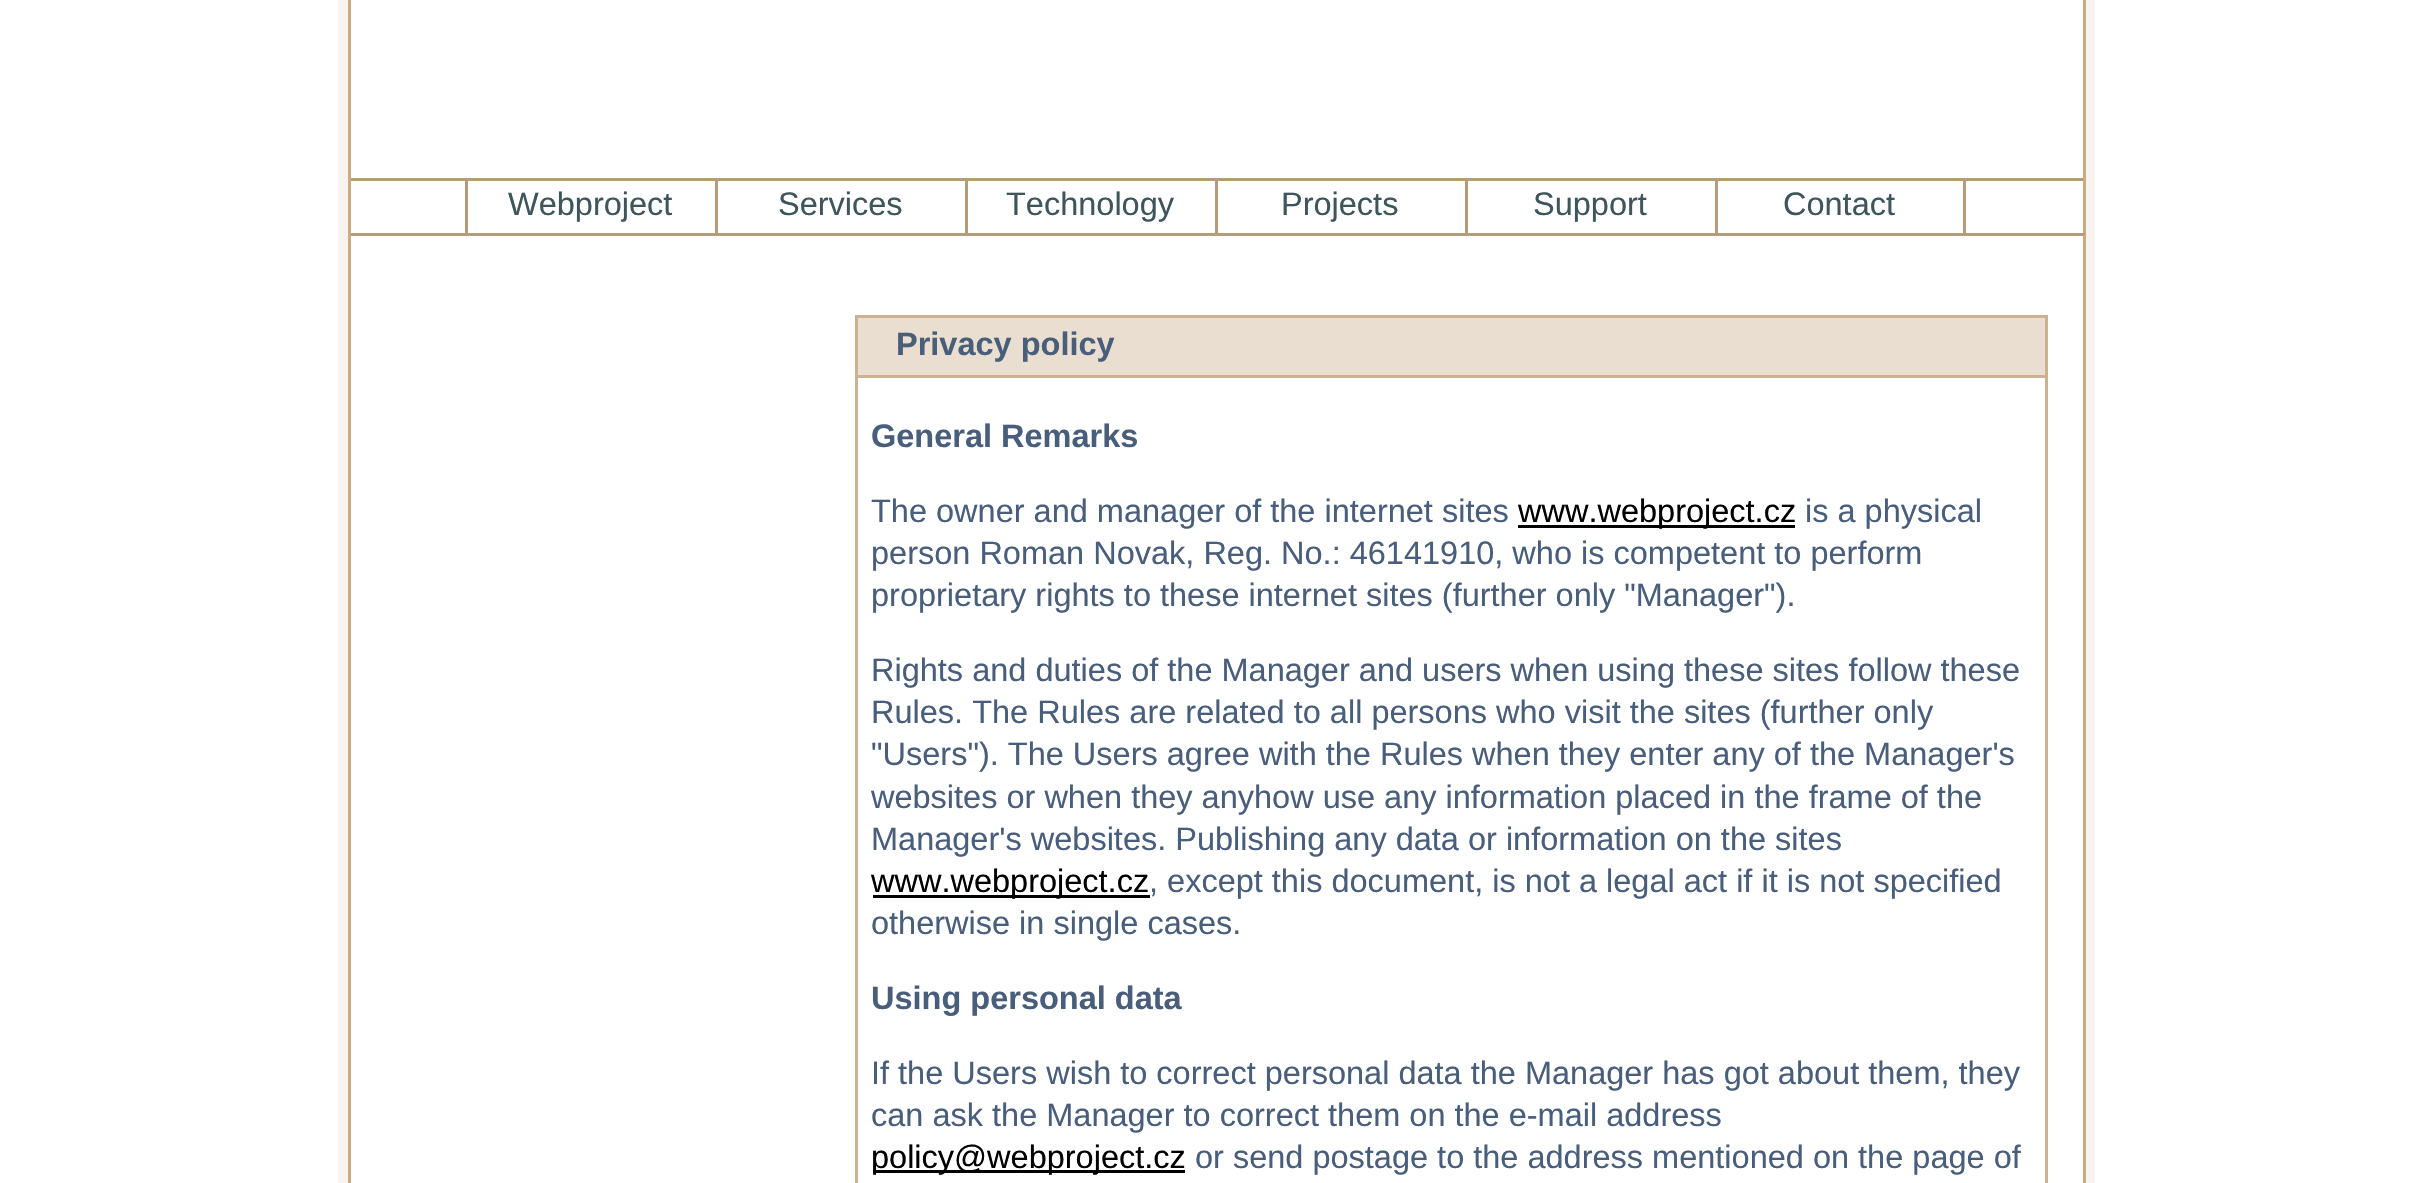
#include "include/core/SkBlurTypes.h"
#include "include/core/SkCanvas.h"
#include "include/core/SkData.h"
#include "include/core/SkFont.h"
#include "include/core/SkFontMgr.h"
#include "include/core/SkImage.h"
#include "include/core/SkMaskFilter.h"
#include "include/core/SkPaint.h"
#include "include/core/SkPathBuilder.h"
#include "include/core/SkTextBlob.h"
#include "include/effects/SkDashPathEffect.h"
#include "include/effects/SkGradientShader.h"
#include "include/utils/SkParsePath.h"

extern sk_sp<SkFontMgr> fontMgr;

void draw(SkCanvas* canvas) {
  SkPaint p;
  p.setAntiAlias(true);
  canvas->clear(SK_ColorWHITE);
  p.setColor(SkColorSetRGB(247, 244, 239));
  canvas->drawRect(SkRect::MakeLTRB(2086, 0, 2095, 1183), p);
  canvas->drawRect(SkRect::MakeLTRB(338, 0, 348, 1183), p);
  p.setColor(SkColorSetRGB(204, 171, 130));
  canvas->drawRect(SkRect::MakeLTRB(2083, 0, 2086, 178), p);
  canvas->drawRect(SkRect::MakeLTRB(348, 0, 351, 178), p);
  p.setColor(SkColorSetRGB(182, 156, 121));
  canvas->drawRect(SkRect::MakeLTRB(348, 178, 2085, 181), p);
  p.setColor(SkColorSetRGB(204, 171, 130));
  canvas->drawRect(SkRect::MakeLTRB(2083, 178, 2086, 235), p);
  p.setColor(SkColorSetRGB(182, 156, 121));
  canvas->drawRect(SkRect::MakeLTRB(348, 233, 2085, 236), p);
  p.setColor(SkColorSetRGB(204, 171, 130));
  canvas->drawRect(SkRect::MakeLTRB(348, 178, 351, 1183), p);
  p.setColor(SkColorSetRGB(182, 156, 121));
  canvas->drawRect(SkRect::MakeLTRB(465, 180, 468, 233), p);
  canvas->drawRect(SkRect::MakeLTRB(715, 180, 718, 233), p);
  canvas->drawRect(SkRect::MakeLTRB(965, 180, 968, 233), p);
  canvas->drawRect(SkRect::MakeLTRB(1215, 180, 1218, 233), p);
  canvas->drawRect(SkRect::MakeLTRB(1465, 180, 1468, 233), p);
  canvas->drawRect(SkRect::MakeLTRB(1963, 180, 1966, 233), p);
  canvas->drawRect(SkRect::MakeLTRB(1715, 180, 1718, 233), p);
  p.setColor(SkColorSetRGB(204, 171, 130));
  canvas->drawRect(SkRect::MakeLTRB(2083, 235, 2086, 1183), p);
  p.setStyle(SkPaint::kStroke_Style);
  p.setStrokeWidth(3);
  p.setColor(SkColorSetRGB(204, 177, 147));
  canvas->drawRect(SkRect::MakeLTRB(856.5f, 316.5f, 2046.5f, 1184.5f), p);
  p.setStyle(SkPaint::kFill_Style);
  p.setColor(SkColorSetRGB(234, 222, 208));
  canvas->drawRect(SkRect::MakeLTRB(858, 318, 2045, 375), p);
  p.setColor(SkColorSetRGB(204, 177, 147));
  canvas->drawRect(SkRect::MakeLTRB(858, 375, 2045, 378), p);
  p.setColor(SK_ColorBLACK);
  canvas->drawRect(SkRect::MakeLTRB(1518, 525, 1795, 528), p);
  canvas->drawRect(SkRect::MakeLTRB(873, 895, 1150, 898), p);
  canvas->drawRect(SkRect::MakeLTRB(873, 1170, 1185, 1173), p);
  SkFont font1(fontMgr->matchFamilyStyle("Liberation Sans", SkFontStyle::Normal()), 32.5f);
  font1.setSubpixel(true);
  p.setColor(SkColorSetRGB(62, 85, 91));
  canvas->drawString("Webproject", 508, 215, font1, p);
  canvas->drawString("Services", 778, 215, font1, p);
  canvas->drawString("Technology", 1006, 215, font1, p);
  canvas->drawString("Projects", 1281, 215, font1, p);
  canvas->drawString("Support", 1533, 215, font1, p);
  canvas->drawString("Contact", 1783, 215, font1, p);
  SkFont font2(fontMgr->matchFamilyStyle("Liberation Sans", SkFontStyle::Bold()), 32.5f);
  font2.setSubpixel(true);
  p.setColor(SkColorSetRGB(73, 94, 123));
  canvas->drawString("Privacy policy", 896, 355, font2, p);
  canvas->drawString("General Remarks", 871, 447, font2, p);
  canvas->drawString("The owner and manager of the internet sites", 871, 522, font1, p);
  p.setColor(SK_ColorBLACK);
  canvas->drawString("www.webproject.cz", 1518, 522, font1, p);
  p.setColor(SkColorSetRGB(73, 94, 123));
  canvas->drawString("is a physical", 1805, 522, font1, p);
  canvas->drawString("person Roman Novak, Reg. No.: 46141910, who is competent to perform", 871, 564, font1, p);
  canvas->drawString("proprietary rights to these internet sites (further only \"Manager\").", 871, 606, font1, p);
  canvas->drawString("Rights and duties of the Manager and users when using these sites follow these", 871, 681, font1, p);
  canvas->drawString("Rules. The Rules are related to all persons who visit the sites (further only", 871, 723, font1, p);
  canvas->drawString("\"Users\"). The Users agree with the Rules when they enter any of the Manager's", 871, 765, font1, p);
  canvas->drawString("websites or when they anyhow use any information placed in the frame of the", 871, 808, font1, p);
  canvas->drawString("Manager's websites. Publishing any data or information on the sites", 871, 850, font1, p);
  p.setColor(SK_ColorBLACK);
  canvas->drawString("www.webproject.cz", 871, 892, font1, p);
  p.setColor(SkColorSetRGB(73, 94, 123));
  canvas->drawString(", except this document, is not a legal act if it is not specified", 1149, 892, font1, p);
  canvas->drawString("otherwise in single cases.", 871, 934, font1, p);
  canvas->drawString("Using personal data", 871, 1009, font2, p);
  canvas->drawString("If the Users wish to correct personal data the Manager has got about them, they", 871, 1084, font1, p);
  canvas->drawString("can ask the Manager to correct them on the e-mail address", 871, 1126, font1, p);
  p.setColor(SK_ColorBLACK);
  canvas->drawString("policy@webproject.cz", 871, 1168, font1, p);
  p.setColor(SkColorSetRGB(73, 94, 123));
  canvas->drawString("or send postage to the address mentioned on the page of", 1195, 1168, font1, p);
}
